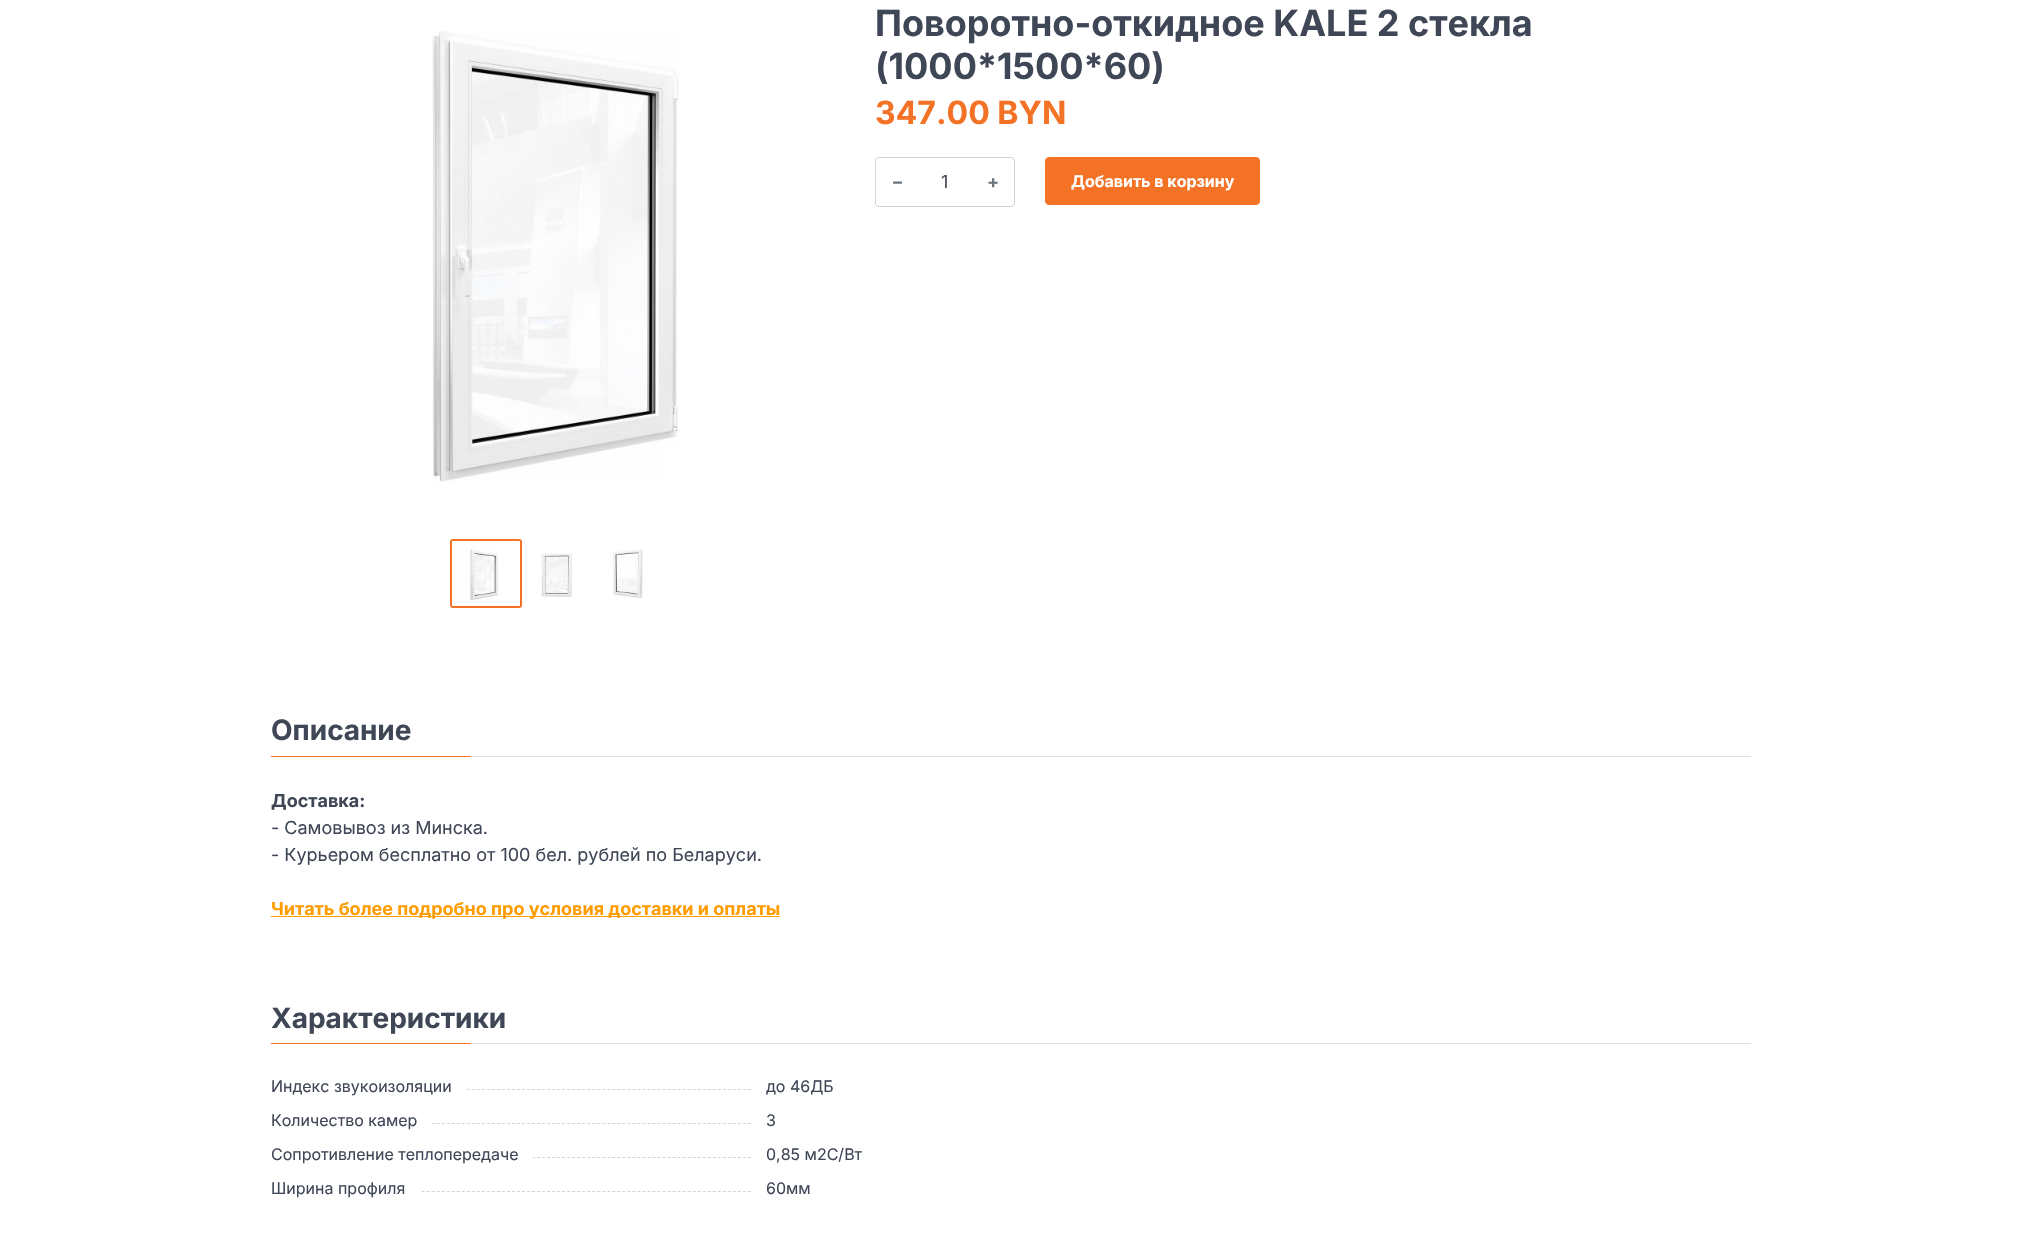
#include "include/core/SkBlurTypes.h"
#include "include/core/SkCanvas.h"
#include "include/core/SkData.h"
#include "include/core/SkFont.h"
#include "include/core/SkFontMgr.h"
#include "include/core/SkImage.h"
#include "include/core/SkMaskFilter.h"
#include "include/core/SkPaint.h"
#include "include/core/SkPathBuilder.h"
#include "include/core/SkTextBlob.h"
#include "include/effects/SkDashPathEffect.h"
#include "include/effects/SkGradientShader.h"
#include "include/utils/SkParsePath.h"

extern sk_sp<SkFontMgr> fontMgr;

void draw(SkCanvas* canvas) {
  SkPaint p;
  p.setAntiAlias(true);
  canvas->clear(SK_ColorWHITE);
  canvas->drawImageRect(SkImages::DeferredFromEncodedData(SkData::MakeFromFileName("images/1.png")), SkRect::MakeLTRB(432, 31, 679, 482), SkSamplingOptions());
  p.setStyle(SkPaint::kStroke_Style);
  p.setStrokeWidth(2);
  p.setColor(SkColorSetRGB(244, 114, 37));
  canvas->drawRoundRect(SkRect::MakeLTRB(451, 540, 521, 607), 2, 2, p);
  canvas->drawImageRect(SkImages::DeferredFromEncodedData(SkData::MakeFromFileName("images/2.png")), SkRect::MakeLTRB(452, 541, 498, 606), SkSamplingOptions());
  canvas->drawImageRect(SkImages::DeferredFromEncodedData(SkData::MakeFromFileName("images/3.png")), SkRect::MakeLTRB(541, 553, 572, 597), SkSamplingOptions());
  canvas->drawImageRect(SkImages::DeferredFromEncodedData(SkData::MakeFromFileName("images/4.png")), SkRect::MakeLTRB(613, 549, 643, 598), SkSamplingOptions());
  p.setStrokeWidth(1);
  p.setColor(SkColorSetRGB(206, 212, 218));
  canvas->drawRoundRect(SkRect::MakeLTRB(875.5f, 157.5f, 1014.5f, 206.5f), 3.5f, 3.5f, p);
  p.setStyle(SkPaint::kFill_Style);
  p.setColor(SK_ColorWHITE);
  canvas->drawPath(SkPathBuilder().moveTo(880, 158).lineTo(918, 158).lineTo(918, 206).lineTo(880, 206).cubicTo(878, 206, 876, 204, 876, 202).lineTo(876, 162).cubicTo(876, 160, 878, 158, 880, 158).close().detach(), p);
  canvas->drawPath(SkPathBuilder().moveTo(972, 158).lineTo(1010, 158).cubicTo(1012, 158, 1014, 160, 1014, 162).lineTo(1014, 202).cubicTo(1014, 204, 1012, 206, 1010, 206).lineTo(972, 206).close().detach(), p);
  p.setColor(SkColorSetRGB(244, 114, 37));
  canvas->drawRoundRect(SkRect::MakeLTRB(1045.5f, 157.5f, 1259.5f, 204.5f), 3.5f, 3.5f, p);
  p.setStyle(SkPaint::kStroke_Style);
  canvas->drawRoundRect(SkRect::MakeLTRB(1045.5f, 157.5f, 1259.5f, 204.5f), 3.5f, 3.5f, p);
  p.setStyle(SkPaint::kFill_Style);
  p.setColor(SkColorSetRGB(222, 226, 230));
  canvas->drawRect(SkRect::MakeLTRB(471, 756, 1751, 757), p);
  p.setColor(SkColorSetRGB(244, 114, 37));
  canvas->drawRect(SkRect::MakeLTRB(271, 756, 471, 757), p);
  p.setColor(SkColorSetRGB(255, 156, 0));
  canvas->drawRect(SkRect::MakeLTRB(271, 916, 780, 917), p);
  p.setColor(SkColorSetRGB(222, 226, 230));
  canvas->drawRect(SkRect::MakeLTRB(471, 1043, 1751, 1044), p);
  p.setColor(SkColorSetRGB(244, 114, 37));
  canvas->drawRect(SkRect::MakeLTRB(271, 1043, 471, 1044), p);
  p.setStyle(SkPaint::kStroke_Style);
  p.setColor(SkColorSetRGB(206, 212, 218));
  p.setPathEffect(SkDashPathEffect::Make({{3, 2.02f}}, 0));
  canvas->drawPath(SkPathBuilder().moveTo(271, 1089.5f).lineTo(751, 1089.5f).detach(), p);
  p.setPathEffect(nullptr);
  p.setStyle(SkPaint::kFill_Style);
  p.setColor(SK_ColorWHITE);
  canvas->drawRect(SkRect::MakeLTRB(271, 1089, 467, 1090), p);
  p.setStyle(SkPaint::kStroke_Style);
  p.setColor(SkColorSetRGB(206, 212, 218));
  p.setPathEffect(SkDashPathEffect::Make({{3, 2.02f}}, 0));
  canvas->drawPath(SkPathBuilder().moveTo(271, 1123.5f).lineTo(751, 1123.5f).detach(), p);
  p.setPathEffect(nullptr);
  p.setStyle(SkPaint::kFill_Style);
  p.setColor(SK_ColorWHITE);
  canvas->drawRect(SkRect::MakeLTRB(271, 1123, 432, 1124), p);
  p.setStyle(SkPaint::kStroke_Style);
  p.setColor(SkColorSetRGB(206, 212, 218));
  p.setPathEffect(SkDashPathEffect::Make({{3, 2.02f}}, 0));
  canvas->drawPath(SkPathBuilder().moveTo(271, 1157.5f).lineTo(751, 1157.5f).detach(), p);
  p.setPathEffect(nullptr);
  p.setStyle(SkPaint::kFill_Style);
  p.setColor(SK_ColorWHITE);
  canvas->drawRect(SkRect::MakeLTRB(271, 1157, 533, 1158), p);
  p.setStyle(SkPaint::kStroke_Style);
  p.setColor(SkColorSetRGB(206, 212, 218));
  p.setPathEffect(SkDashPathEffect::Make({{3, 2.02f}}, 0));
  canvas->drawPath(SkPathBuilder().moveTo(271, 1191.5f).lineTo(751, 1191.5f).detach(), p);
  p.setPathEffect(nullptr);
  p.setStyle(SkPaint::kFill_Style);
  p.setColor(SK_ColorWHITE);
  canvas->drawRect(SkRect::MakeLTRB(271, 1191, 420, 1192), p);
  SkFont font1(fontMgr->matchFamilyStyle("Inter", SkFontStyle::Bold()), 36);
  font1.setSubpixel(true);
  p.setColor(SkColorSetRGB(63, 70, 86));
  canvas->drawString("Поворотно-откидное KALE 2 стекла", 875, 36, font1, p);
  canvas->drawString("(1000*1500*60)", 875, 79, font1, p);
  SkFont font2(fontMgr->matchFamilyStyle("Inter", SkFontStyle::Bold()), 32);
  font2.setSubpixel(true);
  p.setColor(SkColorSetRGB(244, 114, 37));
  canvas->drawString("347.00 BYN", 875, 124, font2, p);
  SkFont font3(fontMgr->matchFamilyStyle("Inter", SkFontStyle::Bold()), 18);
  font3.setSubpixel(true);
  p.setColor(SkColorSetRGB(108, 117, 125));
  canvas->drawString("–", 893, 188, font3, p);
  SkFont font4(fontMgr->matchFamilyStyle("Inter", SkFontStyle::Normal()), 18);
  font4.setSubpixel(true);
  p.setColor(SkColorSetRGB(73, 80, 87));
  canvas->drawString("1", 941, 188, font4, p);
  p.setColor(SkColorSetRGB(108, 117, 125));
  canvas->drawString("+", 987, 188, font3, p);
  SkFont font5(fontMgr->matchFamilyStyle("Inter", SkFontStyle::Bold()), 16);
  font5.setSubpixel(true);
  p.setColor(SK_ColorWHITE);
  canvas->drawString("Добавить в корзину", 1071, 187, font5, p);
  SkFont font6(fontMgr->matchFamilyStyle("Inter", SkFontStyle::Bold()), 28);
  font6.setSubpixel(true);
  p.setColor(SkColorSetRGB(63, 70, 86));
  canvas->drawString("Описание", 271, 740, font6, p);
  canvas->drawString("Доставка:", 271, 807, font3, p);
  canvas->drawString("- Самовывоз из Минска.", 271, 834, font4, p);
  canvas->drawString("- Курьером бесплатно от 100 бел. рублей по Беларуси.", 271, 861, font4, p);
  p.setColor(SkColorSetRGB(255, 156, 0));
  canvas->drawString("Читать более подробно про условия доставки и оплаты", 271, 915, font3, p);
  p.setColor(SkColorSetRGB(63, 70, 86));
  canvas->drawString("Характеристики", 271, 1028, font6, p);
  SkFont font7(fontMgr->matchFamilyStyle("Inter", SkFontStyle::Normal()), 16);
  font7.setSubpixel(true);
  canvas->drawString("Индекс звукоизоляции", 271, 1092, font7, p);
  canvas->drawString("до 46ДБ", 766, 1092, font7, p);
  canvas->drawString("Количество камер", 271, 1126, font7, p);
  canvas->drawString("3", 766, 1126, font7, p);
  canvas->drawString("Сопротивление теплопередаче", 271, 1160, font7, p);
  canvas->drawString("0,85 м2С/Вт", 766, 1160, font7, p);
  canvas->drawString("Ширина профиля", 271, 1194, font7, p);
  canvas->drawString("60мм", 766, 1194, font7, p);
}
